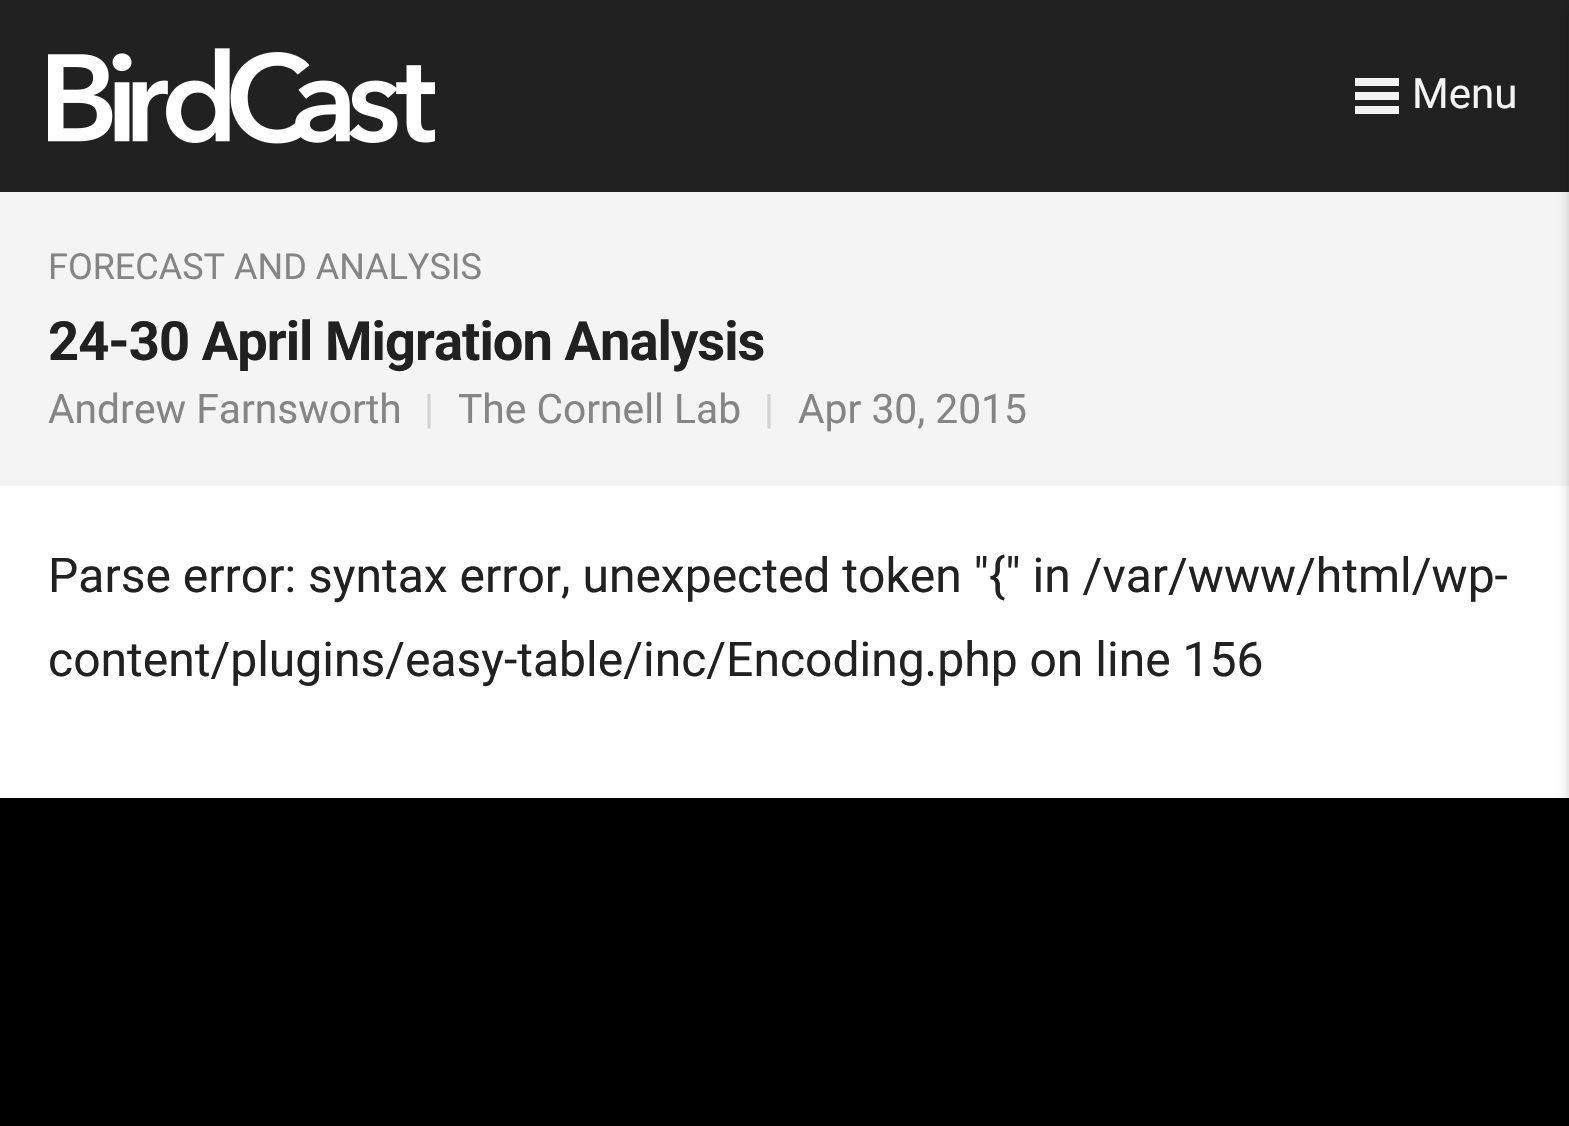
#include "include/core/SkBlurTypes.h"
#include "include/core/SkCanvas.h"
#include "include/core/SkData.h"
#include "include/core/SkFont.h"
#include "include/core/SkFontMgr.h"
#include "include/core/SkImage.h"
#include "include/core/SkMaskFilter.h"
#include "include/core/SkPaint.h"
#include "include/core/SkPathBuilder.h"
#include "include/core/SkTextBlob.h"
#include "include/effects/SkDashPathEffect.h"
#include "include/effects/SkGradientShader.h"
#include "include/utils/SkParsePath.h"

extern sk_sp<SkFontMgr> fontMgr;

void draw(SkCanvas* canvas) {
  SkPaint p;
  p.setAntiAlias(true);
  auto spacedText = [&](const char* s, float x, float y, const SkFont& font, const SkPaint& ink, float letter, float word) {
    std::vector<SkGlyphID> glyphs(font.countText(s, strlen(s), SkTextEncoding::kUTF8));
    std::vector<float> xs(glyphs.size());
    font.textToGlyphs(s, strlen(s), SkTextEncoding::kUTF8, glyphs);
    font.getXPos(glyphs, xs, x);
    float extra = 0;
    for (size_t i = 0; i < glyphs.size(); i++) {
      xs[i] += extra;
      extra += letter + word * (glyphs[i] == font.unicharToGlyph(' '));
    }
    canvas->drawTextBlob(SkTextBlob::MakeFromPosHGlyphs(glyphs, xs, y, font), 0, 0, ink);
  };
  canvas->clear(SK_ColorBLACK);
  p.setColor(SK_ColorWHITE);
  canvas->drawRect(SkRect::MakeLTRB(0, 486, 1569, 798), p);
  p.setColor(SkColorSetRGB(33, 33, 33));
  canvas->drawRect(SkRect::MakeLTRB(0, 0, 1569, 192), p);
  canvas->drawImageRect(SkImages::DeferredFromEncodedData(SkData::MakeFromFileName("images/1.png")), SkRect::MakeLTRB(48, 48, 435, 144), SkSamplingOptions());
  p.setColor(SkColorSetRGB(244, 244, 244));
  canvas->drawPath(SkPathBuilder(SkPathFillType::kEvenOdd).moveTo(1355, 78).lineTo(1399, 78).lineTo(1399, 86).lineTo(1355, 86).close().moveTo(1355, 92).lineTo(1399, 92).lineTo(1399, 100).lineTo(1355, 100).close().moveTo(1355, 106).lineTo(1399, 106).lineTo(1399, 114).lineTo(1355, 114).close().detach(), p);
  canvas->drawRect(SkRect::MakeLTRB(0, 192, 1569, 486), p);
  p.setColor(SkColorSetARGB(51, 0, 0, 0));
  p.setMaskFilter(SkMaskFilter::MakeBlur(kNormal_SkBlurStyle, 6));
  canvas->drawRect(SkRect::MakeLTRB(1569, 6, 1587, 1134), p);
  p.setMaskFilter(nullptr);
  SkFont font1(fontMgr->matchFamilyStyle("Roboto", SkFontStyle::Normal()), 42);
  font1.setSubpixel(true);
  p.setColor(SkColorSetRGB(244, 244, 244));
  canvas->drawString("Menu", 1412, 108, font1, p);
  SkFont font2(fontMgr->matchFamilyStyle("Roboto", SkFontStyle::Normal()), 36);
  font2.setSubpixel(true);
  p.setColor(SkColorSetRGB(133, 133, 133));
  canvas->drawString("FORECAST AND ANALYSIS", 48, 279, font2, p);
  SkFont font3(fontMgr->matchFamilyStyle("Roboto", SkFontStyle::Bold()), 54.25f);
  font3.setSubpixel(true);
  p.setColor(SkColorSetRGB(33, 33, 33));
  spacedText("24-30 April Migration Analysis", 48, 360, font3, p, -0.95f, 0);
  SkFont font4(fontMgr->matchFamilyStyle("Roboto", SkFontStyle::Normal()), 40.75f);
  font4.setSubpixel(true);
  p.setColor(SkColorSetRGB(133, 133, 133));
  canvas->drawString("Andrew Farnsworth", 48, 423, font4, p);
  p.setColor(SkColorSetRGB(211, 211, 211));
  canvas->drawString("|", 424, 423, font4, p);
  p.setColor(SkColorSetRGB(133, 133, 133));
  canvas->drawString("The Cornell Lab", 458, 423, font4, p);
  p.setColor(SkColorSetRGB(211, 211, 211));
  canvas->drawString("|", 764, 423, font4, p);
  p.setColor(SkColorSetRGB(133, 133, 133));
  canvas->drawString("Apr 30, 2015", 798, 423, font4, p);
  SkFont font5(fontMgr->matchFamilyStyle("Roboto", SkFontStyle::Normal()), 48);
  font5.setSubpixel(true);
  p.setColor(SkColorSetRGB(33, 33, 33));
  canvas->drawString("Parse error: syntax error, unexpected token \"{\" in /var/www/html/wp-", 48, 592, font5, p);
  canvas->drawString("content/plugins/easy-table/inc/Encoding.php on line 156", 48, 676, font5, p);
}
